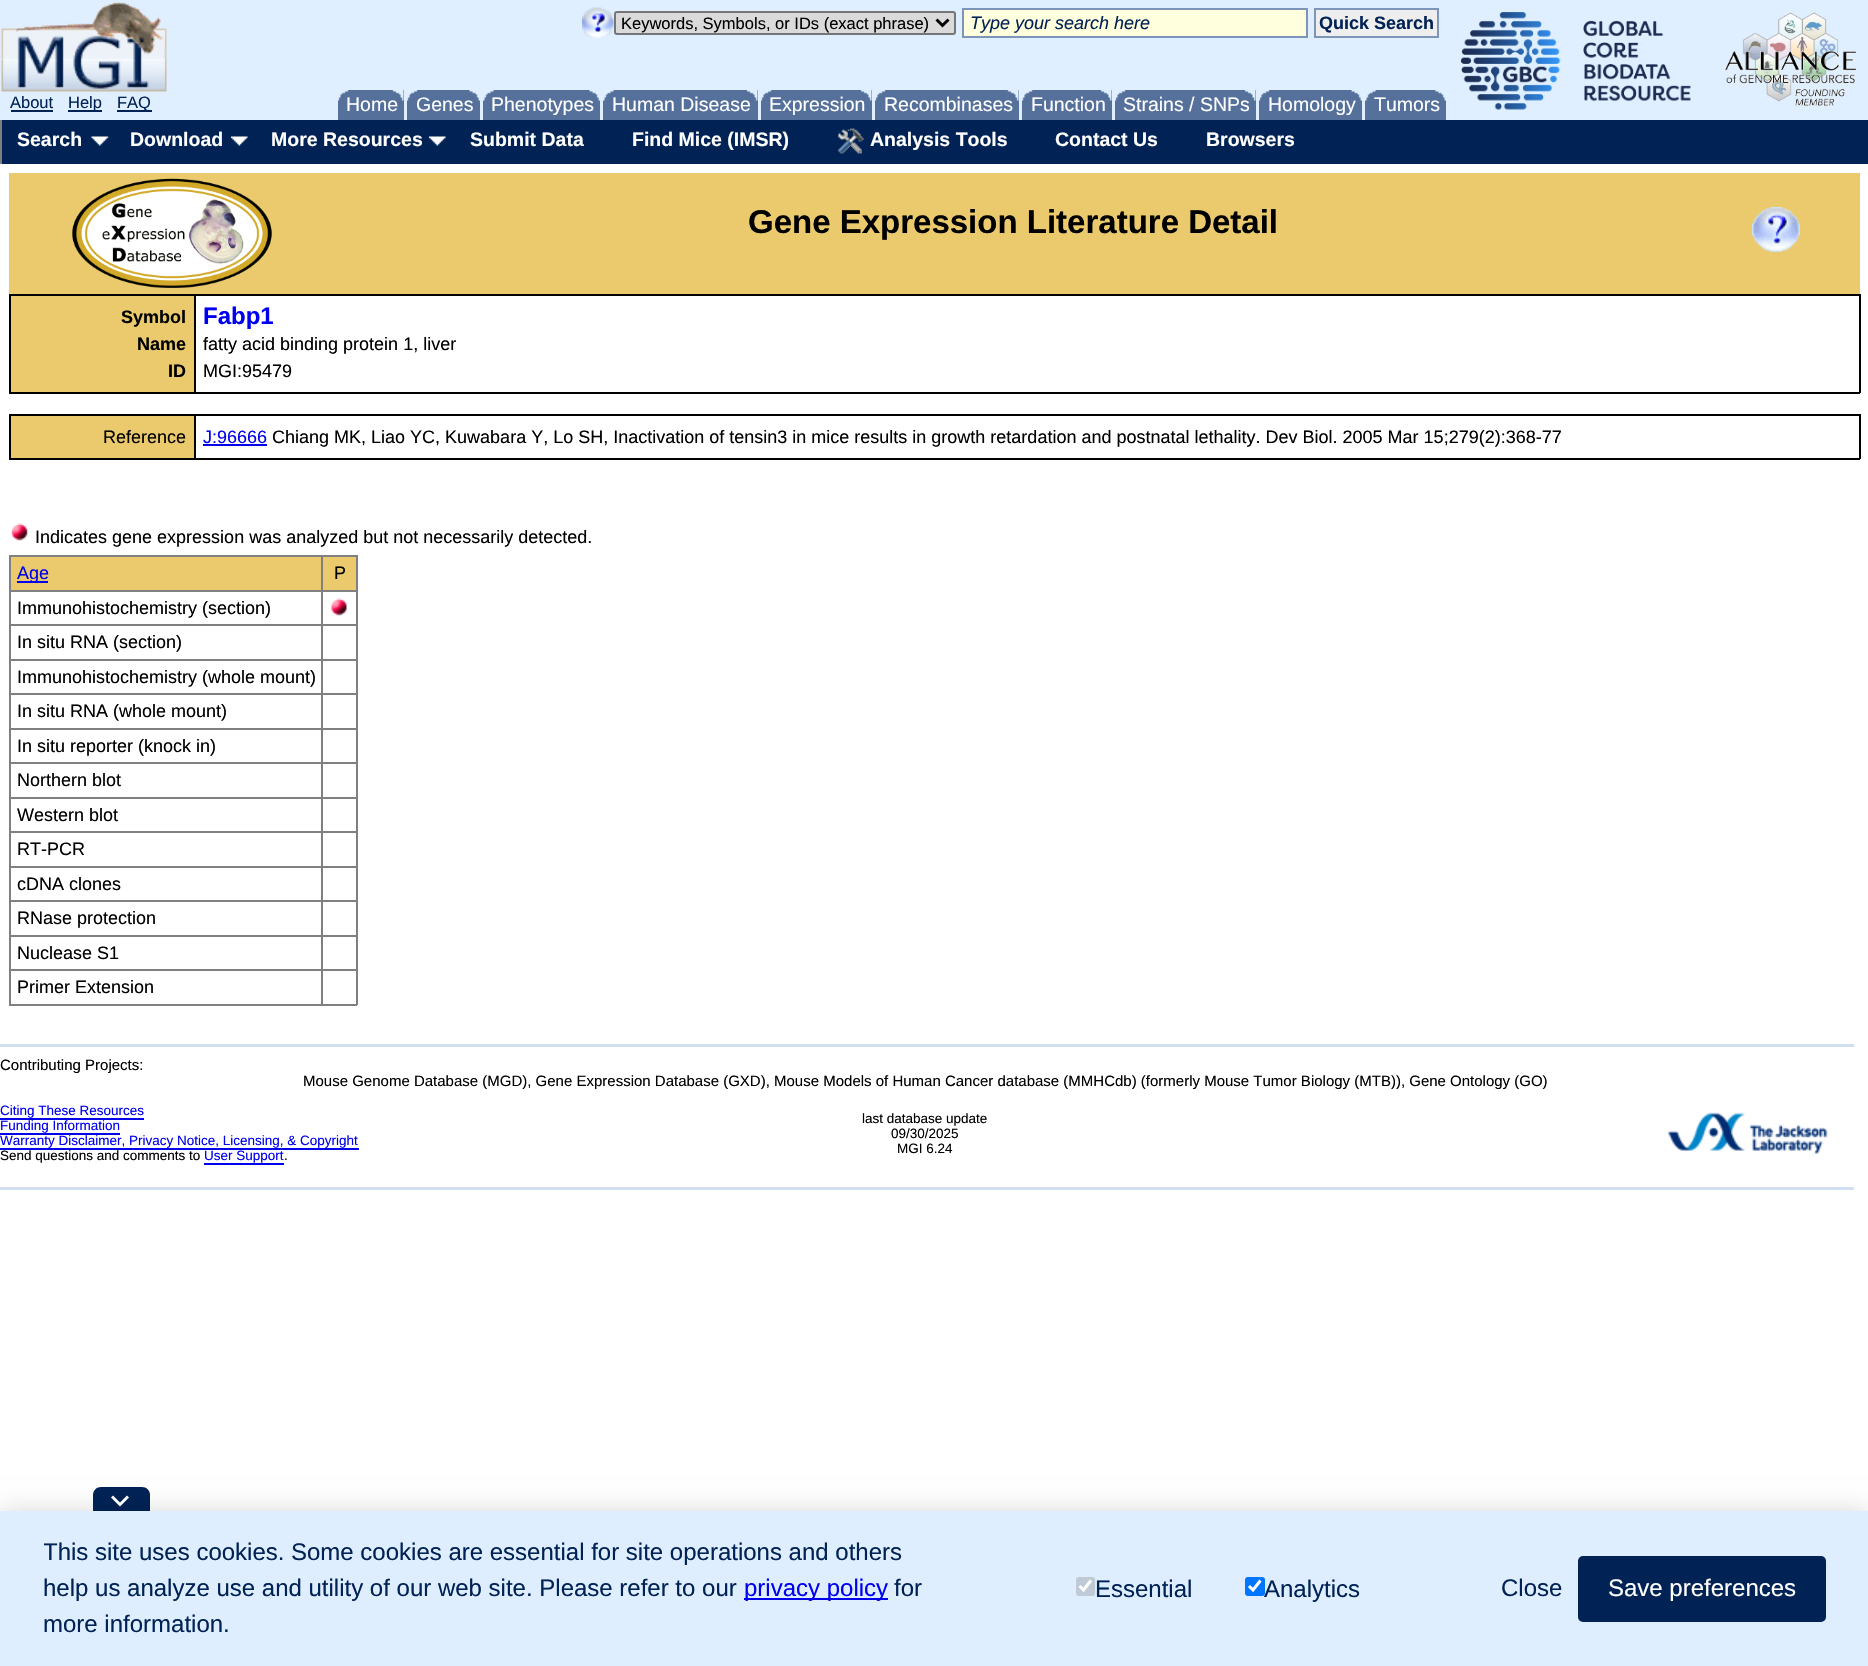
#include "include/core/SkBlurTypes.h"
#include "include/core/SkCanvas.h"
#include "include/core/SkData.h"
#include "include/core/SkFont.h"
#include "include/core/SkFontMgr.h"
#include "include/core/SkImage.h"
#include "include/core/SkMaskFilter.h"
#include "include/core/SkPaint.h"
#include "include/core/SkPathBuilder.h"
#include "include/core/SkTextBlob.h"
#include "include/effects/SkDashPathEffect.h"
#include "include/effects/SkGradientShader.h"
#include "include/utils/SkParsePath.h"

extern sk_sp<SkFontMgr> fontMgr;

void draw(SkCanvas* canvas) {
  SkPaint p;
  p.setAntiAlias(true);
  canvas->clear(SK_ColorWHITE);
  p.setColor(SkColorSetRGB(223, 239, 255));
  canvas->drawRect(SkRect::MakeLTRB(0, 0, 1868, 120), p);
  canvas->drawImageRect(SkImages::DeferredFromEncodedData(SkData::MakeFromFileName("images/1.png")), SkRect::MakeLTRB(582, 7, 614, 38), SkSamplingOptions());
  p.setColor(SkColorSetRGB(218, 218, 218));
  canvas->drawRoundRect(SkRect::MakeLTRB(615, 12, 955, 34), 2, 2, p);
  p.setStyle(SkPaint::kStroke_Style);
  p.setStrokeWidth(2);
  p.setColor(SkColorSetRGB(118, 118, 118));
  canvas->drawRoundRect(SkRect::MakeLTRB(615, 12, 955, 34), 2, 2, p);
  p.setStrokeWidth(3);
  p.setColor(SK_ColorBLACK);
  canvas->drawPath(SkPathBuilder().moveTo(936.5f, 19.5f).lineTo(942.5f, 25.5f).lineTo(948.5f, 19.5f).detach(), p);
  p.setStyle(SkPaint::kFill_Style);
  p.setColor(SkColorSetRGB(255, 255, 221));
  canvas->drawRect(SkRect::MakeLTRB(963, 9, 1307, 37), p);
  p.setStyle(SkPaint::kStroke_Style);
  p.setStrokeWidth(2);
  p.setColor(SkColorSetRGB(125, 149, 185));
  canvas->drawRect(SkRect::MakeLTRB(963, 9, 1307, 37), p);
  p.setStyle(SkPaint::kFill_Style);
  p.setColor(SkColorSetRGB(238, 238, 238));
  canvas->drawRect(SkRect::MakeLTRB(1315, 9, 1438, 37), p);
  p.setStyle(SkPaint::kStroke_Style);
  p.setColor(SkColorSetRGB(125, 149, 185));
  canvas->drawRect(SkRect::MakeLTRB(1315, 9, 1438, 37), p);
  canvas->drawImageRect(SkImages::DeferredFromEncodedData(SkData::MakeFromFileName("images/2.png")), SkRect::MakeLTRB(1461, 12, 1691, 110), SkSamplingOptions());
  canvas->drawImageRect(SkImages::DeferredFromEncodedData(SkData::MakeFromFileName("images/3.png")), SkRect::MakeLTRB(1724, 12, 1857, 106), SkSamplingOptions());
  canvas->drawImageRect(SkImages::DeferredFromEncodedData(SkData::MakeFromFileName("images/4.png")), SkRect::MakeLTRB(1, 2, 167, 92), SkSamplingOptions());
  p.setStyle(SkPaint::kFill_Style);
  p.setColor(SkColorSetRGB(0, 34, 85));
  canvas->drawRect(SkRect::MakeLTRB(11, 110, 53, 112), p);
  canvas->drawRect(SkRect::MakeLTRB(68, 110, 102, 112), p);
  canvas->drawRect(SkRect::MakeLTRB(117, 110, 152, 112), p);
  p.setColor(SkColorSetRGB(84, 112, 155));
  canvas->drawRect(SkRect::MakeLTRB(338, 90, 404, 120), p);
  canvas->drawImageRect(SkImages::DeferredFromEncodedData(SkData::MakeFromFileName("images/5.png")), SkRect::MakeLTRB(338, 90, 349, 101), SkSamplingOptions());
  canvas->drawImageRect(SkImages::DeferredFromEncodedData(SkData::MakeFromFileName("images/6.png")), SkRect::MakeLTRB(392, 90, 404, 101), SkSamplingOptions());
  canvas->drawRect(SkRect::MakeLTRB(407, 90, 480, 120), p);
  canvas->drawImageRect(SkImages::DeferredFromEncodedData(SkData::MakeFromFileName("images/7.png")), SkRect::MakeLTRB(407, 90, 418, 101), SkSamplingOptions());
  canvas->drawImageRect(SkImages::DeferredFromEncodedData(SkData::MakeFromFileName("images/8.png")), SkRect::MakeLTRB(469, 90, 480, 101), SkSamplingOptions());
  canvas->drawRect(SkRect::MakeLTRB(483, 90, 600, 120), p);
  canvas->drawImageRect(SkImages::DeferredFromEncodedData(SkData::MakeFromFileName("images/9.png")), SkRect::MakeLTRB(483, 90, 494, 101), SkSamplingOptions());
  canvas->drawImageRect(SkImages::DeferredFromEncodedData(SkData::MakeFromFileName("images/8.png")), SkRect::MakeLTRB(589, 90, 600, 101), SkSamplingOptions());
  canvas->drawRect(SkRect::MakeLTRB(603, 90, 758, 120), p);
  canvas->drawImageRect(SkImages::DeferredFromEncodedData(SkData::MakeFromFileName("images/9.png")), SkRect::MakeLTRB(603, 90, 614, 101), SkSamplingOptions());
  canvas->drawImageRect(SkImages::DeferredFromEncodedData(SkData::MakeFromFileName("images/6.png")), SkRect::MakeLTRB(746, 90, 758, 101), SkSamplingOptions());
  canvas->drawRect(SkRect::MakeLTRB(761, 90, 872, 120), p);
  canvas->drawImageRect(SkImages::DeferredFromEncodedData(SkData::MakeFromFileName("images/5.png")), SkRect::MakeLTRB(761, 90, 772, 101), SkSamplingOptions());
  canvas->drawImageRect(SkImages::DeferredFromEncodedData(SkData::MakeFromFileName("images/10.png")), SkRect::MakeLTRB(860, 90, 872, 101), SkSamplingOptions());
  canvas->drawRect(SkRect::MakeLTRB(875, 90, 1019, 120), p);
  canvas->drawImageRect(SkImages::DeferredFromEncodedData(SkData::MakeFromFileName("images/5.png")), SkRect::MakeLTRB(875, 90, 886, 101), SkSamplingOptions());
  canvas->drawImageRect(SkImages::DeferredFromEncodedData(SkData::MakeFromFileName("images/10.png")), SkRect::MakeLTRB(1007, 90, 1019, 101), SkSamplingOptions());
  canvas->drawRect(SkRect::MakeLTRB(1022, 90, 1112, 120), p);
  canvas->drawImageRect(SkImages::DeferredFromEncodedData(SkData::MakeFromFileName("images/5.png")), SkRect::MakeLTRB(1022, 90, 1033, 101), SkSamplingOptions());
  canvas->drawImageRect(SkImages::DeferredFromEncodedData(SkData::MakeFromFileName("images/10.png")), SkRect::MakeLTRB(1100, 90, 1112, 101), SkSamplingOptions());
  canvas->drawRect(SkRect::MakeLTRB(1115, 90, 1256, 120), p);
  canvas->drawImageRect(SkImages::DeferredFromEncodedData(SkData::MakeFromFileName("images/7.png")), SkRect::MakeLTRB(1115, 90, 1126, 101), SkSamplingOptions());
  canvas->drawImageRect(SkImages::DeferredFromEncodedData(SkData::MakeFromFileName("images/10.png")), SkRect::MakeLTRB(1244, 90, 1256, 101), SkSamplingOptions());
  canvas->drawRect(SkRect::MakeLTRB(1259, 90, 1362, 120), p);
  canvas->drawImageRect(SkImages::DeferredFromEncodedData(SkData::MakeFromFileName("images/5.png")), SkRect::MakeLTRB(1259, 90, 1270, 101), SkSamplingOptions());
  canvas->drawImageRect(SkImages::DeferredFromEncodedData(SkData::MakeFromFileName("images/8.png")), SkRect::MakeLTRB(1351, 90, 1362, 101), SkSamplingOptions());
  canvas->drawRect(SkRect::MakeLTRB(1365, 90, 1446, 120), p);
  canvas->drawImageRect(SkImages::DeferredFromEncodedData(SkData::MakeFromFileName("images/9.png")), SkRect::MakeLTRB(1365, 90, 1376, 101), SkSamplingOptions());
  canvas->drawImageRect(SkImages::DeferredFromEncodedData(SkData::MakeFromFileName("images/11.png")), SkRect::MakeLTRB(1435, 90, 1446, 101), SkSamplingOptions());
  p.setColor(SkColorSetRGB(0, 34, 85));
  canvas->drawRect(SkRect::MakeLTRB(2, 120, 1868, 164), p);
  p.setColor(SkColorSetRGB(128, 128, 128));
  canvas->drawRect(SkRect::MakeLTRB(0, 120, 2, 164), p);
  canvas->drawImageRect(SkImages::DeferredFromEncodedData(SkData::MakeFromFileName("images/12.png")), SkRect::MakeLTRB(91, 136, 109, 146), SkSamplingOptions());
  canvas->drawImageRect(SkImages::DeferredFromEncodedData(SkData::MakeFromFileName("images/13.png")), SkRect::MakeLTRB(231, 136, 248, 146), SkSamplingOptions());
  canvas->drawImageRect(SkImages::DeferredFromEncodedData(SkData::MakeFromFileName("images/14.png")), SkRect::MakeLTRB(429, 136, 446, 146), SkSamplingOptions());
  canvas->drawImageRect(SkImages::DeferredFromEncodedData(SkData::MakeFromFileName("images/15.png")), SkRect::MakeLTRB(838, 128, 864, 154), SkSamplingOptions());
  p.setColor(SkColorSetRGB(235, 202, 109));
  canvas->drawRect(SkRect::MakeLTRB(9, 173, 1860, 294), p);
  canvas->drawImageRect(SkImages::DeferredFromEncodedData(SkData::MakeFromFileName("images/16.png")), SkRect::MakeLTRB(72, 178, 272, 288), SkSamplingOptions());
  canvas->drawImageRect(SkImages::DeferredFromEncodedData(SkData::MakeFromFileName("images/17.png")), SkRect::MakeLTRB(1752, 207, 1800, 252), SkSamplingOptions());
  p.setColor(SK_ColorBLACK);
  canvas->drawRect(SkRect::MakeLTRB(9, 294, 1860, 296), p);
  canvas->drawRect(SkRect::MakeLTRB(1859, 294, 1861, 393), p);
  canvas->drawRect(SkRect::MakeLTRB(9, 392, 1860, 394), p);
  canvas->drawRect(SkRect::MakeLTRB(9, 294, 11, 393), p);
  p.setColor(SkColorSetRGB(235, 202, 109));
  canvas->drawRect(SkRect::MakeLTRB(11, 296, 194, 392), p);
  p.setColor(SK_ColorBLACK);
  canvas->drawRect(SkRect::MakeLTRB(194, 294, 196, 393), p);
  canvas->drawRect(SkRect::MakeLTRB(9, 414, 1860, 416), p);
  canvas->drawRect(SkRect::MakeLTRB(1859, 414, 1861, 459), p);
  canvas->drawRect(SkRect::MakeLTRB(9, 458, 1860, 460), p);
  canvas->drawRect(SkRect::MakeLTRB(9, 414, 11, 459), p);
  p.setColor(SkColorSetRGB(235, 202, 109));
  canvas->drawRect(SkRect::MakeLTRB(11, 416, 194, 458), p);
  p.setColor(SK_ColorBLACK);
  canvas->drawRect(SkRect::MakeLTRB(194, 414, 196, 459), p);
  p.setColor(SkColorSetRGB(0, 0, 238));
  canvas->drawRect(SkRect::MakeLTRB(203, 444, 267, 446), p);
  canvas->drawImageRect(SkImages::DeferredFromEncodedData(SkData::MakeFromFileName("images/18.png")), SkRect::MakeLTRB(11, 523, 29, 541), SkSamplingOptions());
  p.setColor(SkColorSetRGB(128, 128, 128));
  canvas->drawRect(SkRect::MakeLTRB(9, 555, 357, 557), p);
  canvas->drawRect(SkRect::MakeLTRB(356, 555, 358, 1005), p);
  canvas->drawRect(SkRect::MakeLTRB(9, 1004, 357, 1006), p);
  canvas->drawRect(SkRect::MakeLTRB(9, 555, 11, 1005), p);
  p.setColor(SkColorSetRGB(235, 202, 109));
  canvas->drawRect(SkRect::MakeLTRB(11, 557, 356, 590), p);
  p.setColor(SkColorSetRGB(0, 0, 238));
  canvas->drawRect(SkRect::MakeLTRB(17, 581, 48, 583), p);
  p.setColor(SkColorSetRGB(128, 128, 128));
  canvas->drawRect(SkRect::MakeLTRB(9, 590, 357, 592), p);
  canvas->drawImageRect(SkImages::DeferredFromEncodedData(SkData::MakeFromFileName("images/19.png")), SkRect::MakeLTRB(331, 598, 348, 616), SkSamplingOptions());
  canvas->drawRect(SkRect::MakeLTRB(9, 624, 357, 626), p);
  canvas->drawRect(SkRect::MakeLTRB(9, 659, 357, 661), p);
  canvas->drawRect(SkRect::MakeLTRB(9, 693, 357, 695), p);
  canvas->drawRect(SkRect::MakeLTRB(9, 728, 357, 730), p);
  canvas->drawRect(SkRect::MakeLTRB(9, 762, 357, 764), p);
  canvas->drawRect(SkRect::MakeLTRB(9, 797, 357, 799), p);
  canvas->drawRect(SkRect::MakeLTRB(9, 831, 357, 833), p);
  canvas->drawRect(SkRect::MakeLTRB(9, 866, 357, 868), p);
  canvas->drawRect(SkRect::MakeLTRB(9, 900, 357, 902), p);
  canvas->drawRect(SkRect::MakeLTRB(9, 935, 357, 937), p);
  canvas->drawRect(SkRect::MakeLTRB(9, 969, 357, 971), p);
  canvas->drawRect(SkRect::MakeLTRB(321, 555, 323, 1005), p);
  p.setColor(SkColorSetRGB(208, 224, 240));
  canvas->drawRect(SkRect::MakeLTRB(0, 1044, 1854, 1047), p);
  p.setColor(SkColorSetRGB(0, 0, 238));
  canvas->drawRect(SkRect::MakeLTRB(0, 1118, 144, 1120), p);
  canvas->drawRect(SkRect::MakeLTRB(0, 1133, 120, 1135), p);
  canvas->drawRect(SkRect::MakeLTRB(0, 1148, 359, 1150), p);
  canvas->drawRect(SkRect::MakeLTRB(204, 1163, 284, 1165), p);
  canvas->drawImageRect(SkImages::DeferredFromEncodedData(SkData::MakeFromFileName("images/20.png")), SkRect::MakeLTRB(1667, 1112, 1828, 1154), SkSamplingOptions());
  p.setColor(SkColorSetRGB(208, 224, 240));
  canvas->drawRect(SkRect::MakeLTRB(0, 1187, 1854, 1190), p);
  p.setColor(SkColorSetRGB(0, 34, 85));
  canvas->drawPath(SkPathBuilder().moveTo(101, 1487).lineTo(142, 1487).cubicTo(146.5f, 1487, 150, 1490.5f, 150, 1495).lineTo(150, 1511).lineTo(93, 1511).lineTo(93, 1495).cubicTo(93, 1490.5f, 96.5f, 1487, 101, 1487).close().detach(), p);
  p.setColor(SkColorSetARGB(38, 0, 0, 0));
  p.setMaskFilter(SkMaskFilter::MakeBlur(kNormal_SkBlurStyle, 12));
  canvas->drawRect(SkRect::MakeLTRB(0, 1511, 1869, 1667), p);
  p.setMaskFilter(nullptr);
  p.setColor(SK_ColorWHITE);
  canvas->drawPath(SkPathBuilder().moveTo(120, 1506.5f).lineTo(111, 1497.5f).lineTo(113, 1495.5f).lineTo(120, 1502.5f).lineTo(127, 1495.5f).lineTo(129, 1497.5f).close().detach(), p);
  p.setColor(SkColorSetRGB(222, 238, 255));
  canvas->drawRect(SkRect::MakeLTRB(0, 1511, 1868, 1666), p);
  p.setColor(SkColorSetRGB(0, 0, 238));
  canvas->drawRect(SkRect::MakeLTRB(744, 1598, 888, 1600), p);
  p.setColor(SkColorSetRGB(191, 202, 214));
  canvas->drawRoundRect(SkRect::MakeLTRB(1076, 1577, 1095, 1596), 3, 3, p);
  p.setStyle(SkPaint::kStroke_Style);
  p.setStrokeWidth(3.1f);
  p.setColor(SK_ColorWHITE);
  canvas->drawPath(SkPathBuilder().moveTo(1079.5f, 1586).lineTo(1083.5f, 1590).lineTo(1091, 1580.5f).detach(), p);
  p.setStyle(SkPaint::kFill_Style);
  p.setColor(SkColorSetRGB(0, 117, 255));
  canvas->drawRoundRect(SkRect::MakeLTRB(1245, 1577, 1265, 1596), 3, 3, p);
  p.setStyle(SkPaint::kStroke_Style);
  p.setColor(SK_ColorWHITE);
  canvas->drawPath(SkPathBuilder().moveTo(1249, 1586).lineTo(1253, 1590).lineTo(1260.5f, 1580.5f).detach(), p);
  p.setStyle(SkPaint::kFill_Style);
  p.setColor(SkColorSetRGB(0, 34, 85));
  canvas->drawRoundRect(SkRect::MakeLTRB(1578, 1556, 1826, 1622), 5, 5, p);
  SkFont font1(fontMgr->matchFamilyStyle("Liberation Sans", SkFontStyle::Normal()), 16.5f);
  font1.setSubpixel(true);
  p.setColor(SK_ColorBLACK);
  canvas->drawString("Keywords, Symbols, or IDs (exact phrase)", 621, 29, font1, p);
  SkFont font2(fontMgr->matchFamilyStyle("Liberation Sans", SkFontStyle::Italic()), 18);
  font2.setSubpixel(true);
  p.setColor(SkColorSetRGB(0, 34, 85));
  canvas->drawString("Type your search here", 970, 29, font2, p);
  SkFont font3(fontMgr->matchFamilyStyle("Liberation Sans", SkFontStyle::Bold()), 18);
  font3.setSubpixel(true);
  canvas->drawString("Quick Search", 1319, 29, font3, p);
  canvas->drawString("About", 10, 108, font1, p);
  canvas->drawString("Help", 68, 108, font1, p);
  canvas->drawString("FAQ", 117, 108, font1, p);
  SkFont font4(fontMgr->matchFamilyStyle("Liberation Sans", SkFontStyle::Normal()), 19.5f);
  font4.setSubpixel(true);
  p.setColor(SK_ColorWHITE);
  canvas->drawString("Home", 346, 111, font4, p);
  canvas->drawString("Genes", 416, 111, font4, p);
  canvas->drawString("Phenotypes", 491, 111, font4, p);
  canvas->drawString("Human Disease", 612, 111, font4, p);
  canvas->drawString("Expression", 769, 111, font4, p);
  canvas->drawString("Recombinases", 884, 111, font4, p);
  canvas->drawString("Function", 1031, 111, font4, p);
  canvas->drawString("Strains / SNPs", 1123, 111, font4, p);
  canvas->drawString("Homology", 1268, 111, font4, p);
  canvas->drawString("Tumors", 1374, 111, font4, p);
  SkFont font5(fontMgr->matchFamilyStyle("Liberation Sans", SkFontStyle::Bold()), 19.5f);
  font5.setSubpixel(true);
  canvas->drawString("Search", 17, 146, font5, p);
  canvas->drawString("Download", 130, 146, font5, p);
  canvas->drawString("More Resources", 271, 146, font5, p);
  canvas->drawString("Submit Data", 470, 146, font5, p);
  canvas->drawString("Find Mice (IMSR)", 632, 146, font5, p);
  canvas->drawString("Analysis Tools", 870, 146, font5, p);
  canvas->drawString("Contact Us", 1055, 146, font5, p);
  canvas->drawString("Browsers", 1206, 146, font5, p);
  SkFont font6(fontMgr->matchFamilyStyle("Liberation Sans", SkFontStyle::Bold()), 33);
  font6.setSubpixel(true);
  p.setColor(SK_ColorBLACK);
  canvas->drawString("Gene Expression Literature Detail", 748, 233, font6, p);
  canvas->drawString("Symbol", 121, 323, font3, p);
  canvas->drawString("Name", 137, 350, font3, p);
  canvas->drawString("ID", 168, 377, font3, p);
  SkFont font7(fontMgr->matchFamilyStyle("Liberation Sans", SkFontStyle::Bold()), 24);
  font7.setSubpixel(true);
  p.setColor(SkColorSetRGB(0, 0, 238));
  canvas->drawString("Fabp1", 203, 324, font7, p);
  SkFont font8(fontMgr->matchFamilyStyle("Liberation Sans", SkFontStyle::Normal()), 18);
  font8.setSubpixel(true);
  p.setColor(SK_ColorBLACK);
  canvas->drawString("fatty acid binding protein 1, liver", 203, 350, font8, p);
  canvas->drawString("MGI:95479", 203, 377, font8, p);
  canvas->drawString("Reference", 103, 443, font8, p);
  p.setColor(SkColorSetRGB(0, 0, 238));
  canvas->drawString("J:96666", 203, 443, font8, p);
  p.setColor(SK_ColorBLACK);
  canvas->drawString("Chiang MK, Liao YC, Kuwabara Y, Lo SH, Inactivation of tensin3 in mice results in growth retardation and postnatal lethality. Dev Biol. 2005 Mar 15;279(2):368-77", 272, 443, font8, p);
  canvas->drawString("Indicates gene expression was analyzed but not necessarily detected.", 35, 543, font8, p);
  p.setColor(SkColorSetRGB(0, 0, 238));
  canvas->drawString("Age", 17, 579, font8, p);
  p.setColor(SK_ColorBLACK);
  canvas->drawString("P", 334, 579, font8, p);
  canvas->drawString("Immunohistochemistry (section)", 17, 614, font8, p);
  canvas->drawString("In situ RNA (section)", 17, 648, font8, p);
  canvas->drawString("Immunohistochemistry (whole mount)", 17, 683, font8, p);
  canvas->drawString("In situ RNA (whole mount)", 17, 717, font8, p);
  canvas->drawString("In situ reporter (knock in)", 17, 752, font8, p);
  canvas->drawString("Northern blot", 17, 786, font8, p);
  canvas->drawString("Western blot", 17, 821, font8, p);
  canvas->drawString("RT-PCR", 17, 855, font8, p);
  canvas->drawString("cDNA clones", 17, 890, font8, p);
  canvas->drawString("RNase protection", 17, 924, font8, p);
  canvas->drawString("Nuclease S1", 17, 959, font8, p);
  canvas->drawString("Primer Extension", 17, 993, font8, p);
  SkFont font9(fontMgr->matchFamilyStyle("Liberation Sans", SkFontStyle::Normal()), 15);
  font9.setSubpixel(true);
  canvas->drawString("Contributing Projects:", 0, 1070, font9, p);
  canvas->drawString("Mouse Genome Database (MGD), Gene Expression Database (GXD), Mouse Models of Human Cancer database (MMHCdb) (formerly Mouse Tumor Biology (MTB)), Gene Ontology (GO)", 303, 1086, font9, p);
  SkFont font10(fontMgr->matchFamilyStyle("Liberation Sans", SkFontStyle::Normal()), 13.5f);
  font10.setSubpixel(true);
  p.setColor(SkColorSetRGB(0, 0, 238));
  canvas->drawString("Citing These Resources", 0, 1115, font10, p);
  canvas->drawString("Funding Information", 0, 1130, font10, p);
  canvas->drawString("Warranty Disclaimer, Privacy Notice, Licensing, & Copyright", 0, 1145, font10, p);
  p.setColor(SK_ColorBLACK);
  canvas->drawString("Send questions and comments to", 0, 1160, font10, p);
  p.setColor(SkColorSetRGB(0, 0, 238));
  canvas->drawString("User Support", 204, 1160, font10, p);
  p.setColor(SK_ColorBLACK);
  canvas->drawString(".", 284, 1160, font10, p);
  canvas->drawString("last database update", 862, 1123, font10, p);
  canvas->drawString("09/30/2025", 891, 1138, font10, p);
  canvas->drawString("MGI 6.24", 897, 1153, font10, p);
  canvas->save();
  canvas->clipRect(SkRect::MakeLTRB(44, 1535, 935, 1643));
  SkFont font11(fontMgr->matchFamilyStyle("Liberation Sans", SkFontStyle::Normal()), 24);
  font11.setSubpixel(true);
  p.setColor(SkColorSetRGB(0, 34, 85));
  canvas->drawString("This site uses cookies.", 43, 1560, font11, p);
  canvas->restore();
  canvas->drawString("Some cookies are essential for site operations and others", 291, 1560, font11, p);
  canvas->drawString("help us analyze use and utility of our web site. Please refer to our", 43, 1596, font11, p);
  p.setColor(SkColorSetRGB(0, 0, 238));
  canvas->drawString("privacy policy", 744, 1596, font11, p);
  p.setColor(SkColorSetRGB(0, 34, 85));
  canvas->drawString("for", 894, 1596, font11, p);
  canvas->drawString("more information.", 43, 1632, font11, p);
  canvas->drawString("Essential", 1095, 1597, font11, p);
  canvas->drawString("Analytics", 1264, 1597, font11, p);
  canvas->drawString("Close", 1501, 1596, font11, p);
  p.setColor(SK_ColorWHITE);
  canvas->drawString("Save preferences", 1608, 1596, font11, p);
}
